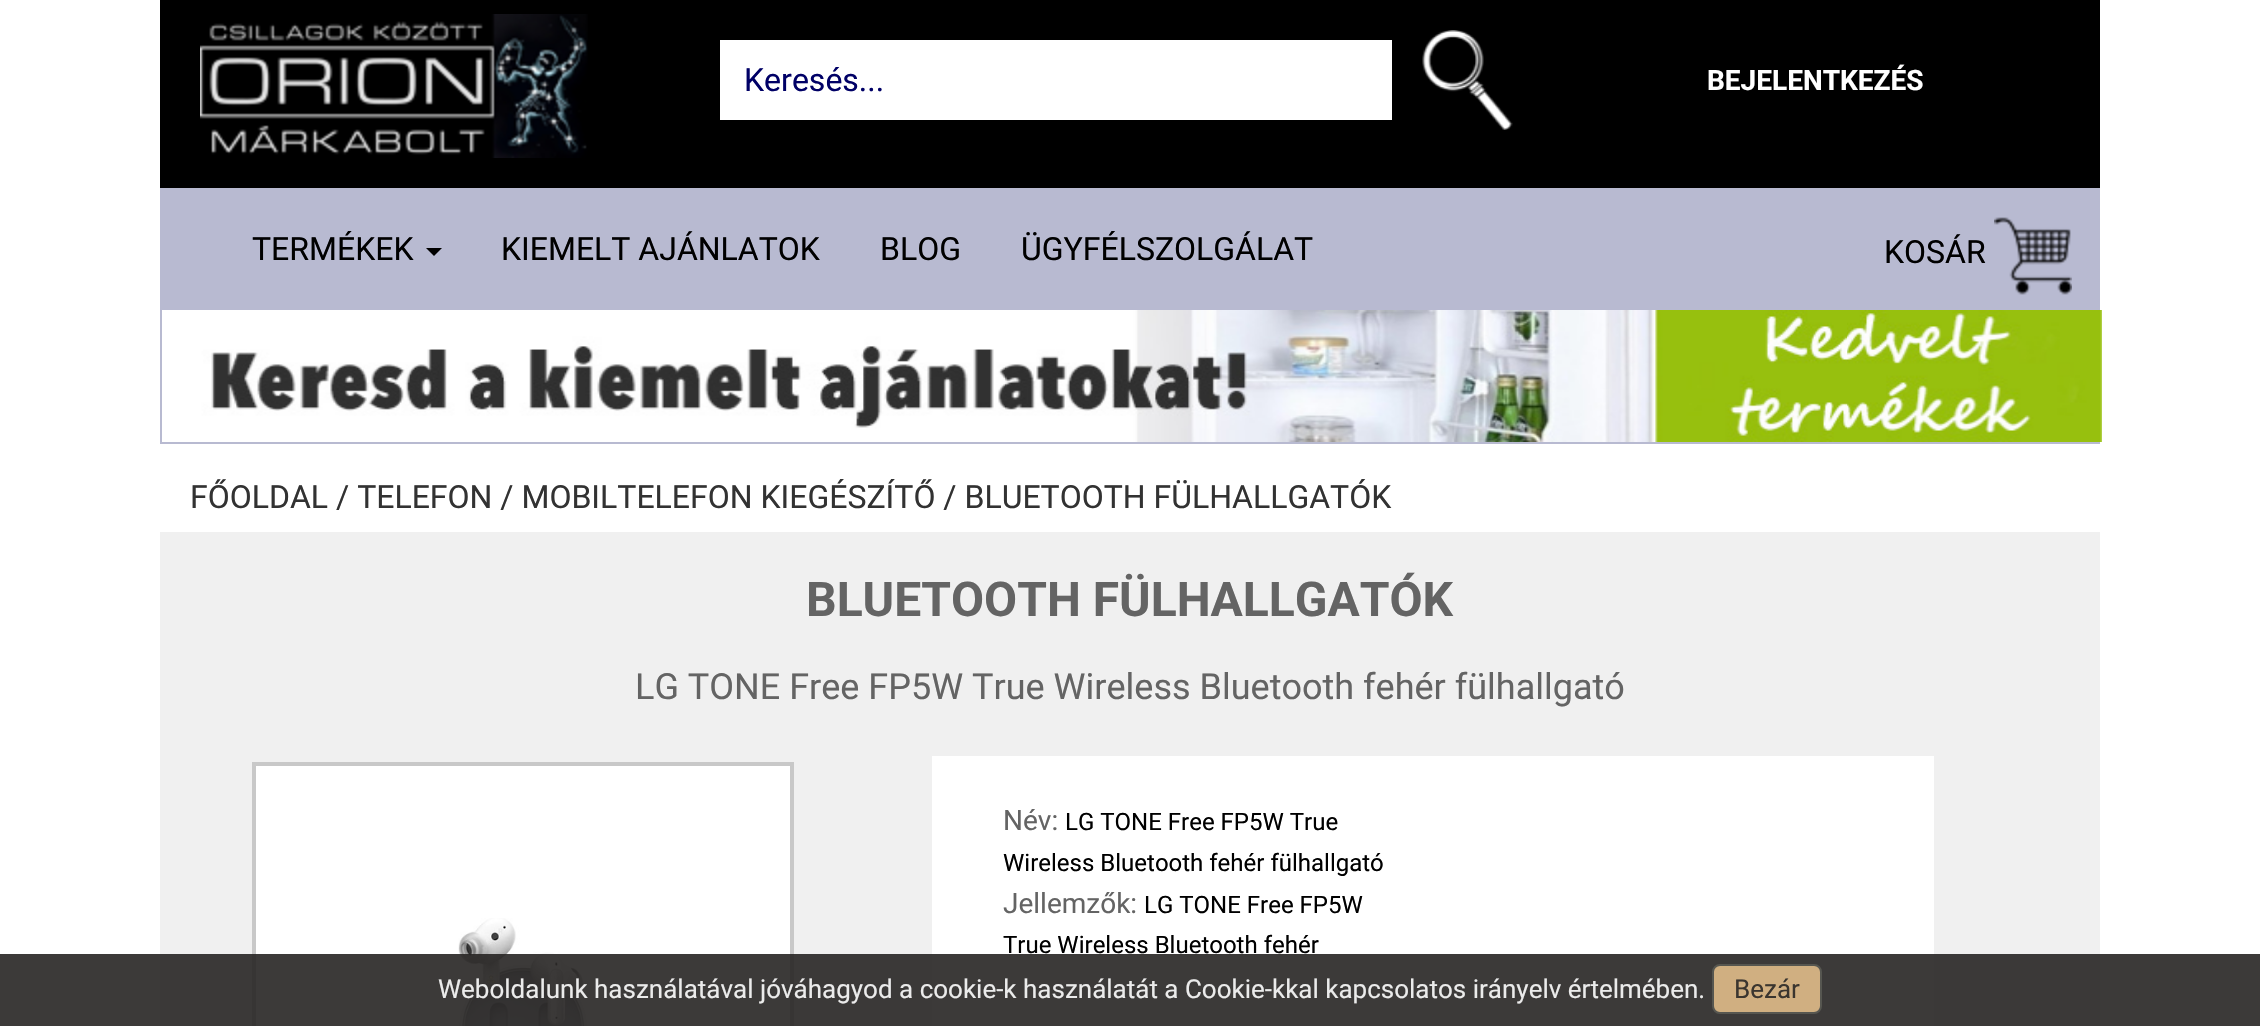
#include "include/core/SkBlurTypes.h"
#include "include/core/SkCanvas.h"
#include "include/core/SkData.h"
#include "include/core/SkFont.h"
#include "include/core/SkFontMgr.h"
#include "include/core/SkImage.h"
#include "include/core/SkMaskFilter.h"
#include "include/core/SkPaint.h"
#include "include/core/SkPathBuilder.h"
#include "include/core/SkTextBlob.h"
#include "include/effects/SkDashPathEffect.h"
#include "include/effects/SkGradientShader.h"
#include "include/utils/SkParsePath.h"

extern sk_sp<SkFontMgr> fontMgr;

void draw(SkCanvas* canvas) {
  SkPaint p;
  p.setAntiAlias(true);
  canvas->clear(SK_ColorWHITE);
  p.setColor(SK_ColorBLACK);
  canvas->drawRect(SkRect::MakeLTRB(160, 0, 2100, 188), p);
  canvas->drawImageRect(SkImages::DeferredFromEncodedData(SkData::MakeFromFileName("images/1.png")), SkRect::MakeLTRB(200, 14, 588, 158), SkSamplingOptions());
  p.setColor(SK_ColorWHITE);
  canvas->drawRect(SkRect::MakeLTRB(720, 40, 1392, 120), p);
  canvas->drawImageRect(SkImages::DeferredFromEncodedData(SkData::MakeFromFileName("images/2.png")), SkRect::MakeLTRB(1422, 30, 1513, 130), SkSamplingOptions());
  p.setColor(SkColorSetRGB(184, 186, 209));
  canvas->drawRect(SkRect::MakeLTRB(160, 188, 2100, 444), p);
  p.setColor(SK_ColorBLACK);
  canvas->drawPath(SkPathBuilder().moveTo(426, 248).lineTo(442, 248).lineTo(434, 256).close().detach(), p);
  canvas->drawImageRect(SkImages::DeferredFromEncodedData(SkData::MakeFromFileName("images/3.png")), SkRect::MakeLTRB(1994, 217, 2072, 295), SkSamplingOptions());
  canvas->drawImageRect(SkImages::DeferredFromEncodedData(SkData::MakeFromFileName("images/4.png")), SkRect::MakeLTRB(162, 310, 2102, 442), SkSamplingOptions());
  p.setColor(SkColorSetRGB(240, 240, 240));
  canvas->drawRect(SkRect::MakeLTRB(160, 532, 2100, 1026), p);
  p.setColor(SK_ColorWHITE);
  canvas->drawRect(SkRect::MakeLTRB(254, 764, 792, 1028), p);
  p.setStyle(SkPaint::kStroke_Style);
  p.setStrokeWidth(4);
  p.setColor(SkColorSetRGB(200, 200, 200));
  canvas->drawRect(SkRect::MakeLTRB(254, 764, 792, 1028), p);
  canvas->drawImageRect(SkImages::DeferredFromEncodedData(SkData::MakeFromFileName("images/5.png")), SkRect::MakeLTRB(458, 918, 588, 1026), SkSamplingOptions());
  p.setStyle(SkPaint::kFill_Style);
  p.setColor(SK_ColorWHITE);
  canvas->drawRect(SkRect::MakeLTRB(932, 756, 1934, 1026), p);
  p.setColor(SkColorSetARGB(230, 39, 37, 35));
  canvas->drawRect(SkRect::MakeLTRB(0, 954, 2260, 1026), p);
  p.setColor(SkColorSetRGB(208, 175, 129));
  canvas->drawRoundRect(SkRect::MakeLTRB(1713, 965, 1821, 1013), 7, 7, p);
  p.setStyle(SkPaint::kStroke_Style);
  p.setStrokeWidth(2);
  p.setColor(SkColorSetRGB(86, 86, 80));
  canvas->drawRoundRect(SkRect::MakeLTRB(1713, 965, 1821, 1013), 7, 7, p);
  SkFont font1(fontMgr->matchFamilyStyle("Roboto", SkFontStyle::Normal()), 32);
  font1.setSubpixel(true);
  p.setStyle(SkPaint::kFill_Style);
  p.setColor(SkColorSetRGB(0, 0, 102));
  canvas->drawString("Keresés...", 744, 91, font1, p);
  SkFont font2(fontMgr->matchFamilyStyle("Roboto", SkFontStyle::Bold()), 28);
  font2.setSubpixel(true);
  p.setColor(SK_ColorWHITE);
  canvas->drawString("BEJELENTKEZÉS", 1707, 90, font2, p);
  p.setColor(SK_ColorBLACK);
  canvas->drawString("TERMÉKEK", 252, 260, font1, p);
  canvas->drawString("KIEMELT AJÁNLATOK", 501, 260, font1, p);
  canvas->drawString("BLOG", 880, 260, font1, p);
  canvas->drawString("ÜGYFÉLSZOLGÁLAT", 1021, 260, font1, p);
  canvas->drawString("KOSÁR", 1884, 263, font1, p);
  p.setColor(SkColorSetRGB(50, 50, 50));
  canvas->drawString("FŐOLDAL / TELEFON / MOBILTELEFON KIEGÉSZÍTŐ / BLUETOOTH FÜLHALLGATÓK", 190, 508, font1, p);
  SkFont font3(fontMgr->matchFamilyStyle("Roboto", SkFontStyle::Bold()), 48);
  font3.setSubpixel(true);
  p.setColor(SkColorSetRGB(100, 100, 100));
  canvas->drawString("BLUETOOTH FÜLHALLGATÓK", 806, 616, font3, p);
  SkFont font4(fontMgr->matchFamilyStyle("Roboto", SkFontStyle::Normal()), 36);
  font4.setSubpixel(true);
  canvas->drawString("LG TONE Free FP5W True Wireless Bluetooth fehér fülhallgató", 635, 699, font4, p);
  SkFont font5(fontMgr->matchFamilyStyle("Roboto", SkFontStyle::Normal()), 28);
  font5.setSubpixel(true);
  canvas->drawString("Név:", 1003, 830, font5, p);
  SkFont font6(fontMgr->matchFamilyStyle("Roboto", SkFontStyle::Normal()), 24);
  font6.setSubpixel(true);
  p.setColor(SK_ColorBLACK);
  canvas->drawString("LG TONE Free FP5W True", 1065, 830, font6, p);
  canvas->drawString("Wireless Bluetooth fehér fülhallgató", 1003, 871, font6, p);
  p.setColor(SkColorSetRGB(100, 100, 100));
  canvas->drawString("Jellemzők:", 1003, 913, font5, p);
  p.setColor(SK_ColorBLACK);
  canvas->drawString("LG TONE Free FP5W", 1144, 913, font6, p);
  canvas->drawString("True Wireless Bluetooth fehér", 1003, 953, font6, p);
  SkFont font7(fontMgr->matchFamilyStyle("Roboto", SkFontStyle::Normal()), 26);
  font7.setSubpixel(true);
  p.setColor(SkColorSetRGB(235, 235, 235));
  canvas->drawString("Weboldalunk használatával jóváhagyod a cookie-k használatát a Cookie-kkal kapcsolatos irányelv értelmében.", 438, 998, font7, p);
  p.setColor(SkColorSetRGB(58, 53, 47));
  canvas->drawString("Bezár", 1734, 998, font7, p);
}
